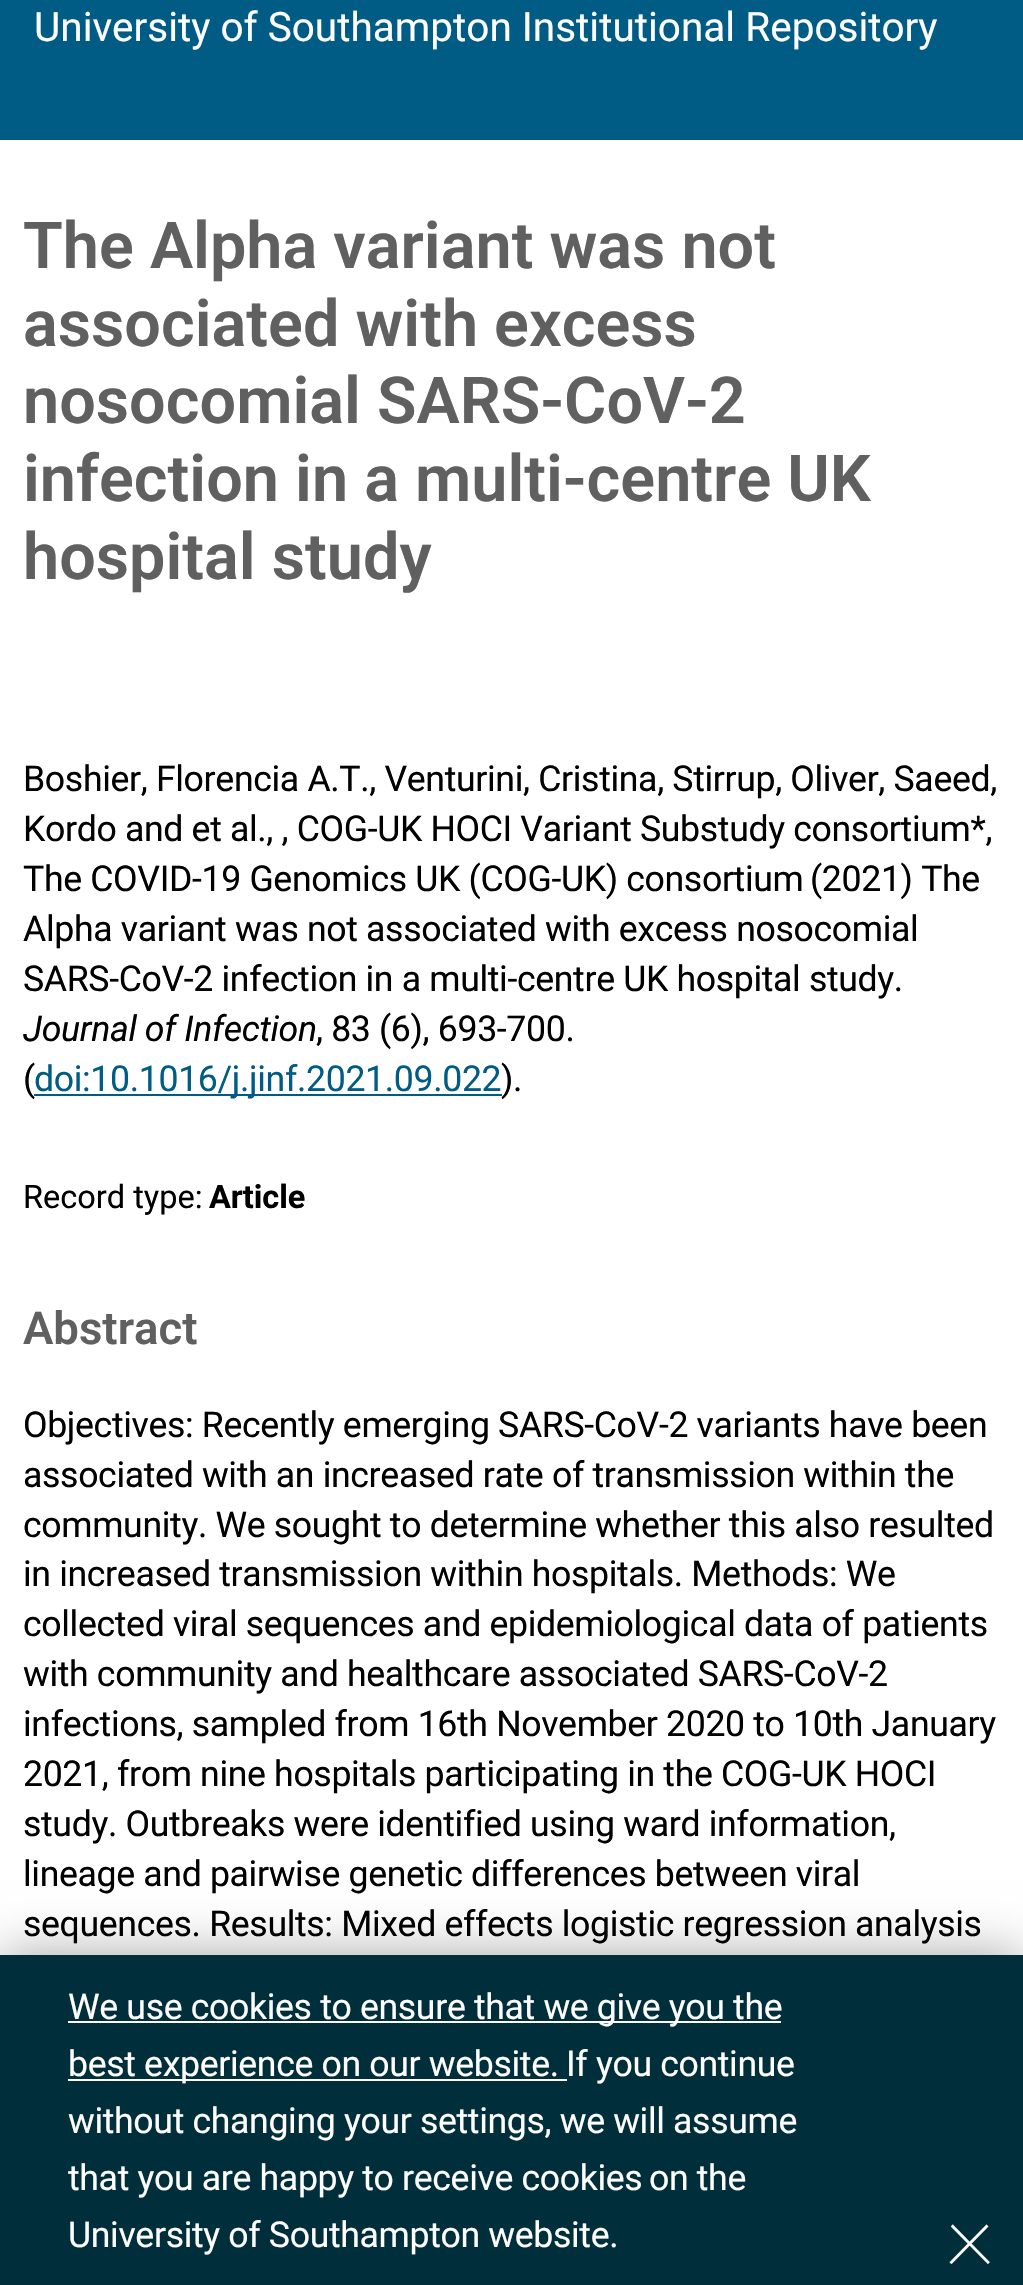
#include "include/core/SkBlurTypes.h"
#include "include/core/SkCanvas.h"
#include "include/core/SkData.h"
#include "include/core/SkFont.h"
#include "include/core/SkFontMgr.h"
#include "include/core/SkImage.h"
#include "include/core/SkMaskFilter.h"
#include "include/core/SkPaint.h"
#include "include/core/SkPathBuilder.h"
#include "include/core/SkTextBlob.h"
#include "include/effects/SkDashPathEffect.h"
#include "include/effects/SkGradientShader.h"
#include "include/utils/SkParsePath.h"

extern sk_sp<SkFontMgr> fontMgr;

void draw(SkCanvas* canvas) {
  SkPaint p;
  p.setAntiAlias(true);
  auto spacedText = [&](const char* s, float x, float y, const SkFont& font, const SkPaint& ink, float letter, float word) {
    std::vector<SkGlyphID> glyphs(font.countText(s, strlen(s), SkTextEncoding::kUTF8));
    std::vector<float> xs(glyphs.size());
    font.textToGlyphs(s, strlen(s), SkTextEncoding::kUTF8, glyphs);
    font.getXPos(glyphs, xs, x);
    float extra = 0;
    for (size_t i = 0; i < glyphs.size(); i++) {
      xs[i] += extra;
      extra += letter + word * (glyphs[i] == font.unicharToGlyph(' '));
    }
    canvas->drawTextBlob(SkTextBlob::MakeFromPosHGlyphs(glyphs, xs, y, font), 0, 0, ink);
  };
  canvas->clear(SkColorSetRGB(0, 92, 133));
  p.setColor(SK_ColorWHITE);
  canvas->drawRect(SkRect::MakeLTRB(0, 140, 1023, 1955), p);
  p.setColor(SkColorSetRGB(0, 92, 133));
  canvas->drawRect(SkRect::MakeLTRB(34, 1094, 502, 1096), p);
  p.setColor(SkColorSetARGB(89, 0, 0, 0));
  p.setMaskFilter(SkMaskFilter::MakeBlur(kNormal_SkBlurStyle, 25));
  canvas->drawRect(SkRect::MakeLTRB(0, 1955, 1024, 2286), p);
  p.setMaskFilter(nullptr);
  p.setColor(SkColorSetRGB(0, 46, 59));
  canvas->drawRect(SkRect::MakeLTRB(0, 1955, 1023, 2285), p);
  p.setColor(SK_ColorWHITE);
  canvas->drawRect(SkRect::MakeLTRB(68, 2021, 781, 2023), p);
  canvas->drawRect(SkRect::MakeLTRB(68, 2079, 567, 2081), p);
  SkFont font1(fontMgr->matchFamilyStyle("Roboto", SkFontStyle::Normal()), 40.5f);
  font1.setSubpixel(true);
  canvas->drawString("University of Southampton Institutional Repository", 34, 41, font1, p);
  SkFont font2(fontMgr->matchFamilyStyle("Roboto", SkFontStyle(600, SkFontStyle::kNormal_Width, SkFontStyle::kUpright_Slant)), 64.75f);
  font2.setSubpixel(true);
  p.setColor(SkColorSetRGB(96, 96, 96));
  canvas->drawString("The Alpha variant was not", 23, 268, font2, p);
  canvas->drawString("associated with excess", 23, 346, font2, p);
  canvas->drawString("nosocomial SARS-CoV-2", 23, 423, font2, p);
  canvas->drawString("infection in a multi-centre UK", 23, 501, font2, p);
  canvas->drawString("hospital study", 23, 579, font2, p);
  SkFont font3(fontMgr->matchFamilyStyle("Roboto", SkFontStyle::Normal()), 35.65f);
  font3.setSubpixel(true);
  p.setColor(SK_ColorBLACK);
  spacedText("Boshier, Florencia A.T., Venturini, Cristina, Stirrup, Oliver, Saeed,", 23, 791, font3, p, -0.35f, 0);
  spacedText("Kordo and et al., , COG-UK HOCI Variant Substudy consortium*,", 23, 841, font3, p, -0.35f, 0);
  spacedText("The COVID-19 Genomics UK (COG-UK) consortium", 23, 891, font3, p, -0.35f, 0);
  spacedText("(2021) The", 810, 891, font3, p, -0.35f, 0);
  spacedText("Alpha variant was not associated with excess nosocomial", 23, 941, font3, p, -0.35f, 0);
  spacedText("SARS-CoV-2 infection in a multi-centre UK hospital study.", 23, 991, font3, p, -0.35f, 0);
  SkFont font4(fontMgr->matchFamilyStyle("Roboto", SkFontStyle::Italic()), 35.65f);
  font4.setSubpixel(true);
  spacedText("Journal of Infection", 23, 1041, font4, p, -0.35f, 0);
  spacedText(", 83 (6), 693-700.", 316, 1041, font3, p, -0.35f, 0);
  spacedText("(", 23, 1091, font3, p, -0.35f, 0);
  p.setColor(SkColorSetRGB(0, 92, 133));
  spacedText("doi:10.1016/j.jinf.2021.09.022", 34, 1091, font3, p, -0.35f, 0);
  p.setColor(SK_ColorBLACK);
  spacedText(").", 501, 1091, font3, p, -0.35f, 0);
  SkFont font5(fontMgr->matchFamilyStyle("Roboto", SkFontStyle::Normal()), 32.5f);
  font5.setSubpixel(true);
  canvas->drawString("Record type:", 23, 1208, font5, p);
  SkFont font6(fontMgr->matchFamilyStyle("Roboto", SkFontStyle::Bold()), 32.5f);
  font6.setSubpixel(true);
  canvas->drawString("Article", 209, 1208, font6, p);
  SkFont font7(fontMgr->matchFamilyStyle("Roboto", SkFontStyle(600, SkFontStyle::kNormal_Width, SkFontStyle::kUpright_Slant)), 45.5f);
  font7.setSubpixel(true);
  p.setColor(SkColorSetRGB(96, 96, 96));
  canvas->drawString("Abstract", 23, 1344, font7, p);
  p.setColor(SK_ColorBLACK);
  spacedText("Objectives: Recently emerging SARS-CoV-2 variants have been", 23, 1437, font3, p, -0.35f, 0);
  spacedText("associated with an increased rate of transmission within the", 23, 1487, font3, p, -0.35f, 0);
  spacedText("community. We sought to determine whether this also resulted", 23, 1537, font3, p, -0.35f, 0);
  spacedText("in increased transmission within hospitals. Methods: We", 23, 1586, font3, p, -0.35f, 0);
  spacedText("collected viral sequences and epidemiological data of patients", 23, 1636, font3, p, -0.35f, 0);
  spacedText("with community and healthcare associated SARS-CoV-2", 23, 1686, font3, p, -0.35f, 0);
  spacedText("infections, sampled from 16th November 2020 to 10th January", 23, 1736, font3, p, -0.35f, 0);
  spacedText("2021, from nine hospitals participating in the COG-UK HOCI", 23, 1786, font3, p, -0.35f, 0);
  spacedText("study. Outbreaks were identified using ward information,", 23, 1836, font3, p, -0.35f, 0);
  spacedText("lineage and pairwise genetic differences between viral", 23, 1886, font3, p, -0.35f, 0);
  spacedText("sequences. Results: Mixed effects logistic regression analysis", 23, 1936, font3, p, -0.35f, 0);
  p.setColor(SK_ColorWHITE);
  spacedText("We use cookies to ensure that we give you the", 68, 2019, font3, p, -0.35f, 0);
  spacedText("best experience on our website.", 68, 2076, font3, p, -0.35f, 0);
  spacedText("If you continue", 566, 2076, font3, p, -0.35f, 0);
  spacedText("without changing your settings, we will assume", 68, 2133, font3, p, -0.35f, 0);
  spacedText("that you are happy to receive cookies", 68, 2190, font3, p, -0.35f, 0);
  spacedText("on the", 649, 2190, font3, p, -0.35f, 0);
  spacedText("University of Southampton website.", 68, 2247, font3, p, -0.35f, 0);
  SkFont font8(fontMgr->matchFamilyStyle("Roboto", SkFontStyle(100, SkFontStyle::kNormal_Width, SkFontStyle::kUpright_Slant)), 97);
  font8.setSubpixel(true);
  canvas->drawString("×", 945, 2264, font8, p);
}
